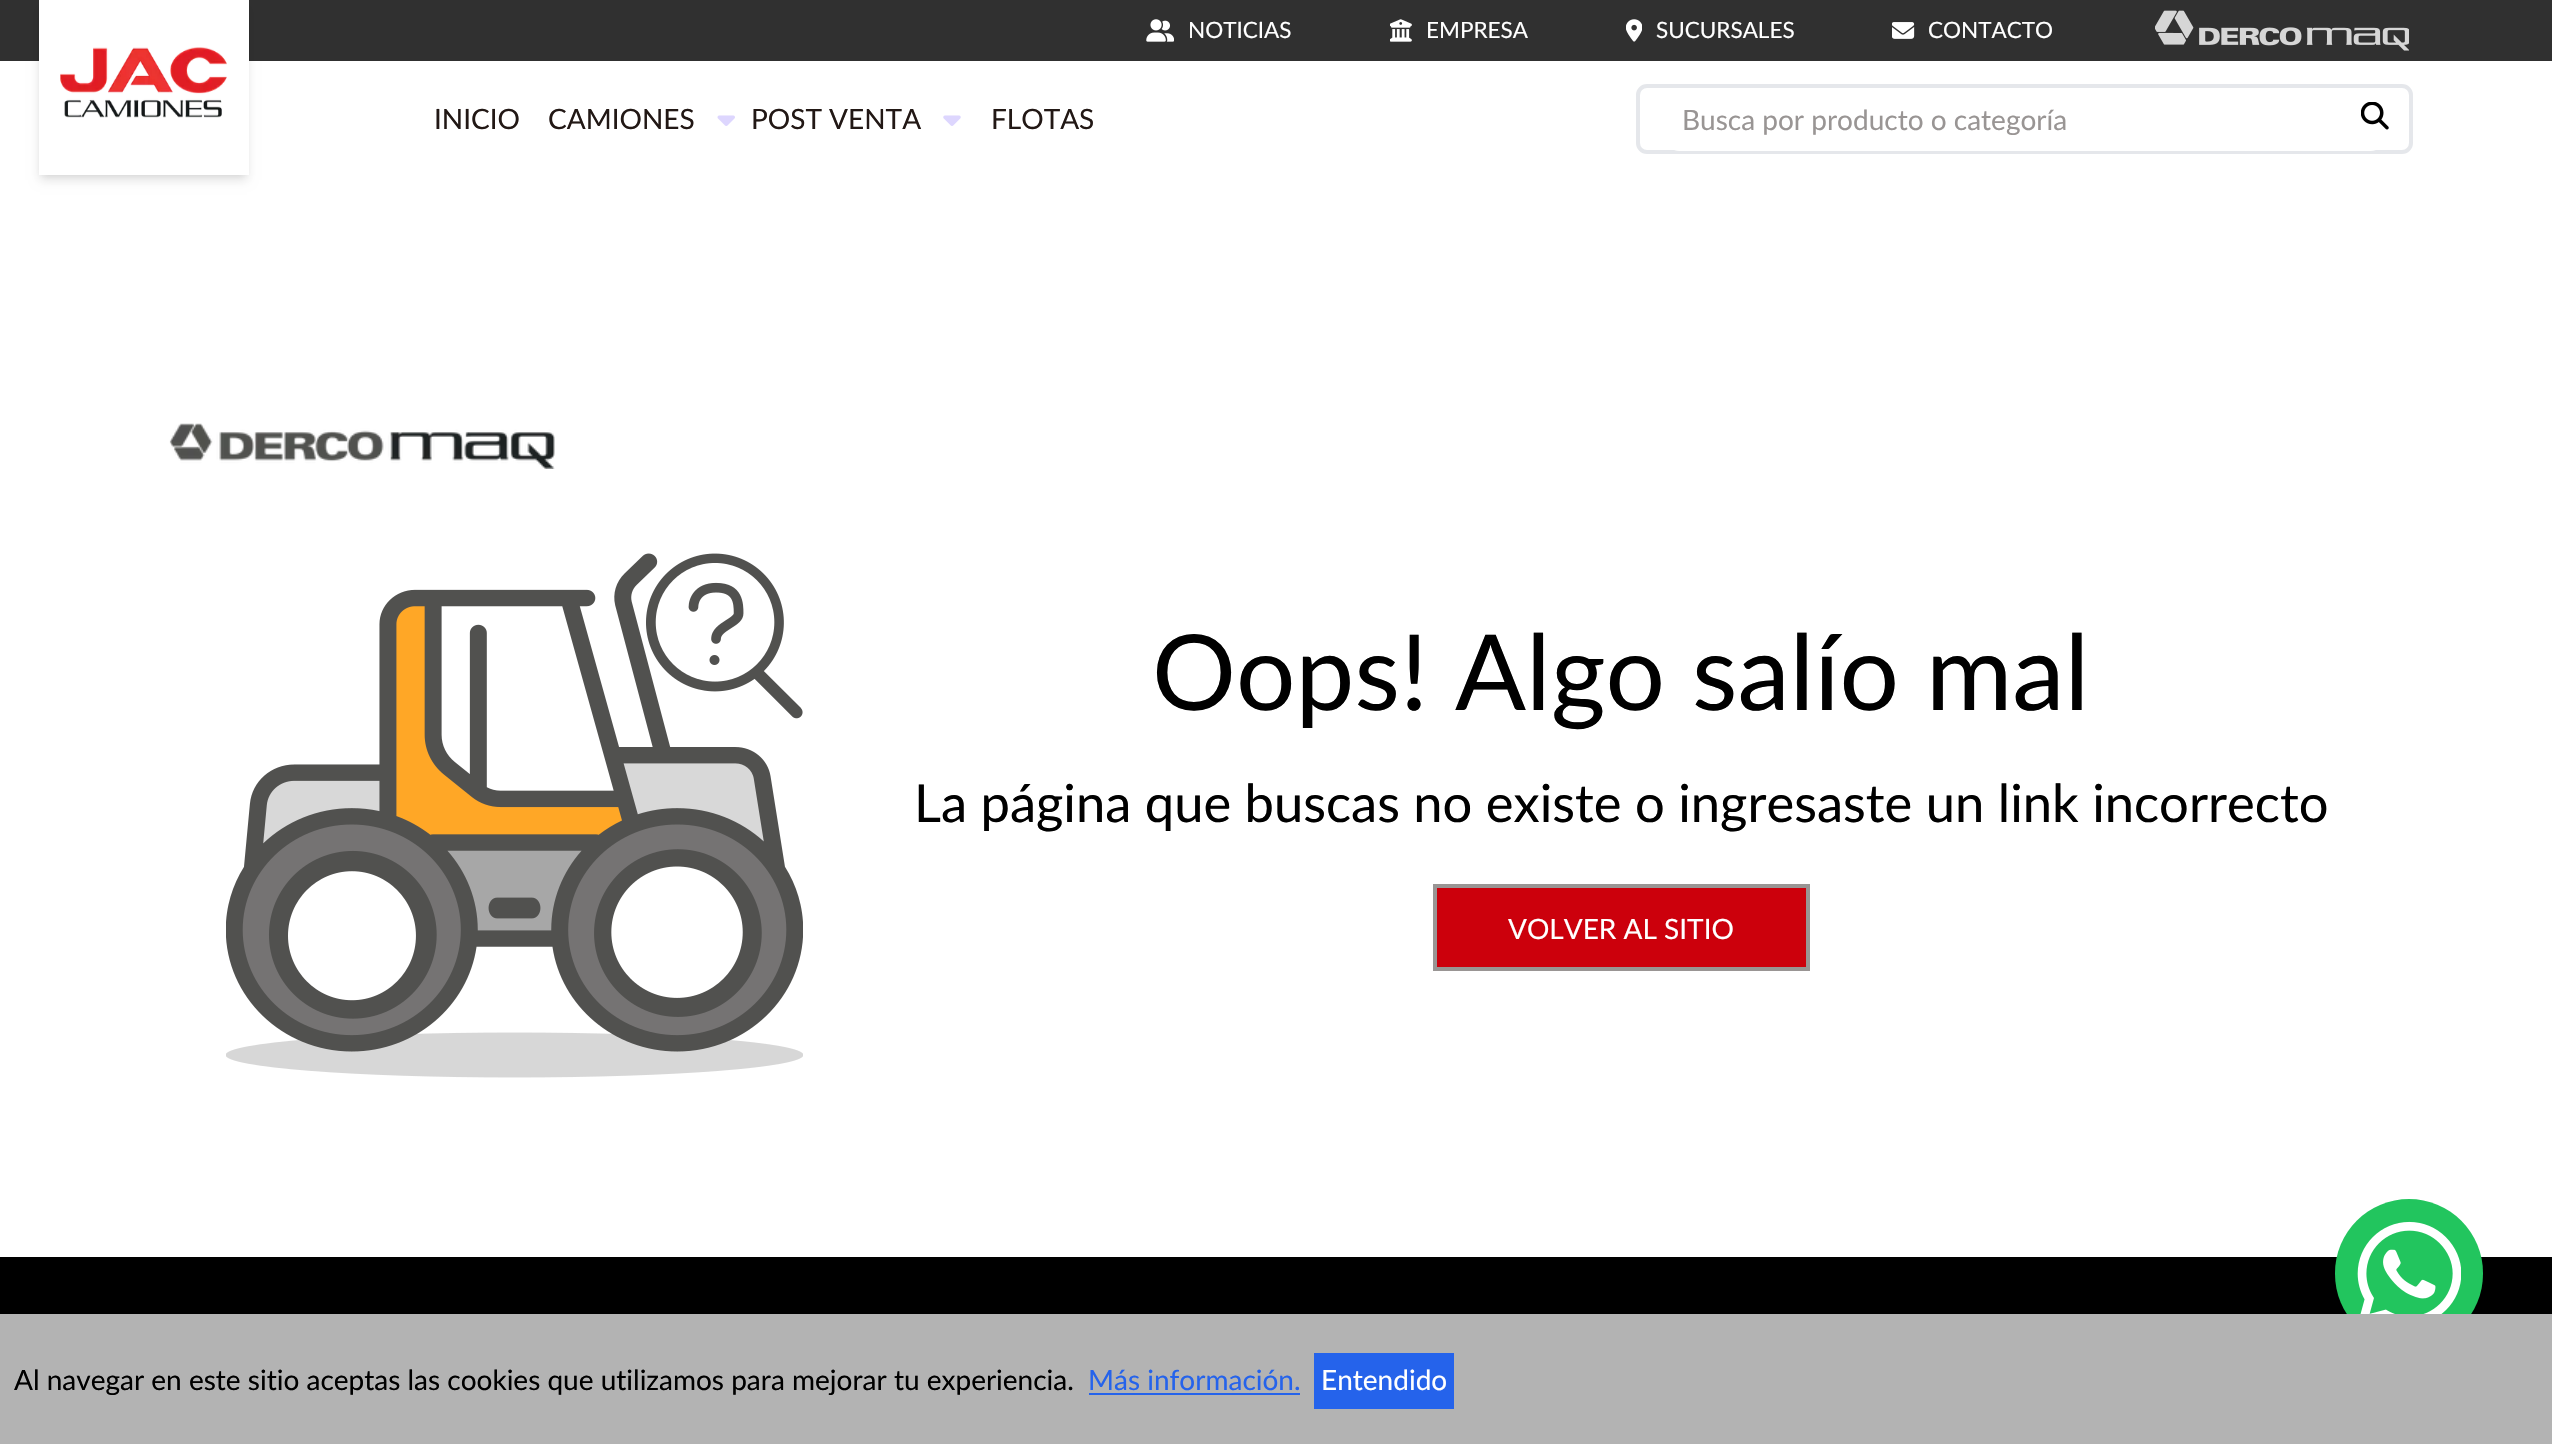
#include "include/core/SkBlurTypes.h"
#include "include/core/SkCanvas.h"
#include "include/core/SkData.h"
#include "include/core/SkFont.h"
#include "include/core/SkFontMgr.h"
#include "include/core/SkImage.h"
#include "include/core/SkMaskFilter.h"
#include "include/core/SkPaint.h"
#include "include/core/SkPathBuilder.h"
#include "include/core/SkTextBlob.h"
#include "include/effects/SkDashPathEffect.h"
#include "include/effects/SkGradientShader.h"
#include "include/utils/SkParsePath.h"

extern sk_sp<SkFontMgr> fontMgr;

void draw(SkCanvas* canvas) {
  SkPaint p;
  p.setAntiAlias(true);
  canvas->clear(SK_ColorWHITE);
  p.setColor(SkColorSetRGB(48, 48, 48));
  canvas->drawRect(SkRect::MakeLTRB(0, 0, 2552, 61), p);
  p.setColor(SkColorSetARGB(26, 0, 0, 0));
  p.setMaskFilter(SkMaskFilter::MakeBlur(kNormal_SkBlurStyle, 3.5f));
  canvas->drawRect(SkRect::MakeLTRB(42, 7, 245, 175), p);
  p.setMaskFilter(nullptr);
  p.setMaskFilter(SkMaskFilter::MakeBlur(kNormal_SkBlurStyle, 5));
  canvas->drawRect(SkRect::MakeLTRB(40, 9, 247, 180), p);
  p.setMaskFilter(nullptr);
  p.setColor(SK_ColorWHITE);
  canvas->drawRect(SkRect::MakeLTRB(39, 0, 249, 175), p);
  canvas->drawImageRect(SkImages::DeferredFromEncodedData(SkData::MakeFromFileName("images/1.png")), SkRect::MakeLTRB(60, 47, 227, 118), SkSamplingOptions());
  canvas->drawImageRect(SkImages::DeferredFromEncodedData(SkData::MakeFromFileName("images/2.png")), SkRect::MakeLTRB(1146, 19, 1174, 42), SkSamplingOptions());
  canvas->drawImageRect(SkImages::DeferredFromEncodedData(SkData::MakeFromFileName("images/3.png")), SkRect::MakeLTRB(1390, 19, 1412, 42), SkSamplingOptions());
  canvas->drawImageRect(SkImages::DeferredFromEncodedData(SkData::MakeFromFileName("images/4.png")), SkRect::MakeLTRB(1626, 19, 1642, 42), SkSamplingOptions());
  canvas->drawImageRect(SkImages::DeferredFromEncodedData(SkData::MakeFromFileName("images/5.png")), SkRect::MakeLTRB(1892, 22, 1915, 39), SkSamplingOptions());
  canvas->drawImageRect(SkImages::DeferredFromEncodedData(SkData::MakeFromFileName("images/6.png")), SkRect::MakeLTRB(2155, 10, 2409, 51), SkSamplingOptions());
  canvas->drawImageRect(SkImages::DeferredFromEncodedData(SkData::MakeFromFileName("images/7.png")), SkRect::MakeLTRB(717, 115, 735, 126), SkSamplingOptions());
  canvas->drawImageRect(SkImages::DeferredFromEncodedData(SkData::MakeFromFileName("images/8.png")), SkRect::MakeLTRB(943, 115, 961, 126), SkSamplingOptions());
  p.setStyle(SkPaint::kStroke_Style);
  p.setStrokeWidth(4);
  p.setColor(SkColorSetRGB(229, 231, 235));
  canvas->drawRoundRect(SkRect::MakeLTRB(1638, 86, 2411, 152), 9, 9, p);
  p.setStyle(SkPaint::kFill_Style);
  p.setColor(SK_ColorWHITE);
  canvas->drawRoundRect(SkRect::MakeLTRB(1668, 88, 2382, 151), 11, 11, p);
  canvas->drawImageRect(SkImages::DeferredFromEncodedData(SkData::MakeFromFileName("images/9.png")), SkRect::MakeLTRB(2361, 102, 2389, 130), SkSamplingOptions());
  canvas->drawImageRect(SkImages::DeferredFromEncodedData(SkData::MakeFromFileName("images/10.png")), SkRect::MakeLTRB(169, 423, 555, 469), SkSamplingOptions());
  canvas->drawImageRect(SkImages::DeferredFromEncodedData(SkData::MakeFromFileName("images/11.png")), SkRect::MakeLTRB(226, 553, 803, 1078), SkSamplingOptions());
  canvas->drawImageRect(SkImages::DeferredFromEncodedData(SkData::MakeFromFileName("images/12.png")), SkRect::MakeLTRB(646, 553, 803, 719), SkSamplingOptions());
  p.setColor(SkColorSetRGB(204, 0, 12));
  canvas->drawRect(SkRect::MakeLTRB(1435, 886, 1808, 969), p);
  p.setStyle(SkPaint::kStroke_Style);
  p.setColor(SkColorSetRGB(153, 149, 148));
  canvas->drawRect(SkRect::MakeLTRB(1435, 886, 1808, 969), p);
  p.setStyle(SkPaint::kFill_Style);
  p.setColor(SK_ColorBLACK);
  canvas->drawRect(SkRect::MakeLTRB(0, 1257, 2552, 1314), p);
  p.setColor(SkColorSetRGB(34, 197, 94));
  canvas->drawRoundRect(SkRect::MakeLTRB(2335, 1199, 2483, 1348), 74, 74, p);
  canvas->drawImageRect(SkImages::DeferredFromEncodedData(SkData::MakeFromFileName("images/13.png")), SkRect::MakeLTRB(2357, 1221, 2461, 1314), SkSamplingOptions());
  p.setColor(SkColorSetRGB(179, 179, 179));
  canvas->drawRect(SkRect::MakeLTRB(0, 1314, 2552, 1444), p);
  p.setColor(SkColorSetRGB(37, 99, 235));
  canvas->drawRect(SkRect::MakeLTRB(1089, 1393, 1300, 1395), p);
  canvas->drawRect(SkRect::MakeLTRB(1314, 1353, 1454, 1409), p);
  SkFont font1(fontMgr->matchFamilyStyle("Lato", SkFontStyle::Normal()), 22.5f);
  font1.setSubpixel(true);
  p.setColor(SK_ColorWHITE);
  canvas->drawString("NOTICIAS", 1188, 38, font1, p);
  canvas->drawString("EMPRESA", 1426, 38, font1, p);
  canvas->drawString("SUCURSALES", 1656, 38, font1, p);
  canvas->drawString("CONTACTO", 1928, 38, font1, p);
  SkFont font2(fontMgr->matchFamilyStyle("Lato", SkFontStyle::Normal()), 28);
  font2.setSubpixel(true);
  p.setColor(SkColorSetRGB(34, 24, 21));
  canvas->drawString("INICIO", 434, 129, font2, p);
  canvas->drawString("CAMIONES", 548, 129, font2, p);
  canvas->drawString("POST VENTA", 751, 129, font2, p);
  canvas->drawString("FLOTAS", 991, 129, font2, p);
  p.setColor(SkColorSetRGB(153, 149, 148));
  canvas->drawString("Busca por producto o categoría", 1682, 130, font2, p);
  SkFont font3(fontMgr->matchFamilyStyle("Lato", SkFontStyle::Normal()), 105);
  font3.setSubpixel(true);
  p.setColor(SK_ColorBLACK);
  canvas->drawString("Oops! Algo salío mal", 1152, 710, font3, p);
  SkFont font4(fontMgr->matchFamilyStyle("Lato", SkFontStyle::Normal()), 52.5f);
  font4.setSubpixel(true);
  canvas->drawString("La página que buscas no existe o ingresaste un link incorrecto", 914, 822, font4, p);
  p.setColor(SK_ColorWHITE);
  canvas->drawString("VOLVER AL SITIO", 1508, 939, font2, p);
  p.setColor(SK_ColorBLACK);
  canvas->drawString("Al navegar en este sitio aceptas las cookies que utilizamos para mejorar tu experiencia.", 14, 1390, font2, p);
  p.setColor(SkColorSetRGB(37, 99, 235));
  canvas->drawString("Más información.", 1088, 1390, font2, p);
  p.setColor(SK_ColorWHITE);
  canvas->drawString("Entendido", 1321, 1390, font2, p);
}
